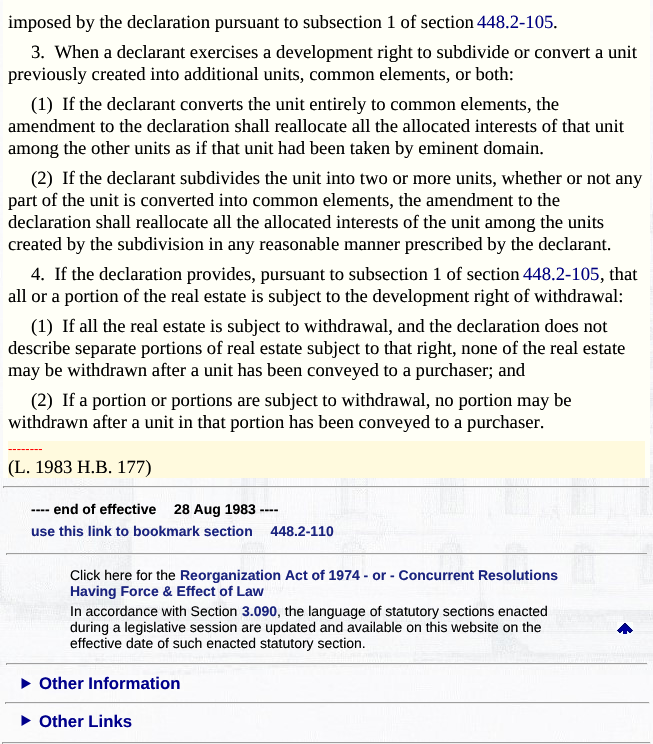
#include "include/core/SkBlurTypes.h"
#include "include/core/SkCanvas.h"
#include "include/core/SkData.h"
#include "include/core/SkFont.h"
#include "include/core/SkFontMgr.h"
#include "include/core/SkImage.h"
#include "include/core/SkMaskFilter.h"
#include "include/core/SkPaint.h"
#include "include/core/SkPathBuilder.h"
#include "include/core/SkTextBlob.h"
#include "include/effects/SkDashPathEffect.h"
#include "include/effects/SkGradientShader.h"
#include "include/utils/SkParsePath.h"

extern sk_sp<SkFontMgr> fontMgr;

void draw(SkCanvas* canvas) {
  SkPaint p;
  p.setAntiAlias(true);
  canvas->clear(SK_ColorWHITE);
  canvas->drawImageRect(SkImages::DeferredFromEncodedData(SkData::MakeFromFileName("images/1.png")), SkRect::MakeLTRB(0, 0, 653, 744), SkSamplingOptions());
  p.setColor(SkColorSetRGB(255, 255, 247));
  canvas->drawRect(SkRect::MakeLTRB(3, 0, 650, 478), p);
  p.setColor(SkColorSetRGB(255, 250, 222));
  canvas->drawRect(SkRect::MakeLTRB(8, 441, 645, 478), p);
  p.setColor(SkColorSetRGB(159, 159, 159));
  canvas->drawRect(SkRect::MakeLTRB(3, 486, 650, 487), p);
  p.setColor(SkColorSetRGB(238, 238, 238));
  canvas->drawRect(SkRect::MakeLTRB(649, 486, 650, 488), p);
  canvas->drawRect(SkRect::MakeLTRB(3, 487, 650, 488), p);
  p.setColor(SkColorSetRGB(159, 159, 159));
  canvas->drawRect(SkRect::MakeLTRB(3, 486, 4, 488), p);
  canvas->drawRect(SkRect::MakeLTRB(6, 553, 648, 554), p);
  p.setColor(SkColorSetRGB(238, 238, 238));
  canvas->drawRect(SkRect::MakeLTRB(647, 553, 648, 555), p);
  canvas->drawRect(SkRect::MakeLTRB(6, 554, 648, 555), p);
  p.setColor(SkColorSetRGB(159, 159, 159));
  canvas->drawRect(SkRect::MakeLTRB(6, 553, 7, 555), p);
  canvas->drawImageRect(SkImages::DeferredFromEncodedData(SkData::MakeFromFileName("images/2.png")), SkRect::MakeLTRB(617, 622, 633, 634), SkSamplingOptions());
  canvas->drawRect(SkRect::MakeLTRB(6, 663, 648, 664), p);
  p.setColor(SkColorSetRGB(238, 238, 238));
  canvas->drawRect(SkRect::MakeLTRB(647, 663, 648, 665), p);
  canvas->drawRect(SkRect::MakeLTRB(6, 664, 648, 665), p);
  p.setColor(SkColorSetRGB(159, 159, 159));
  canvas->drawRect(SkRect::MakeLTRB(6, 663, 7, 665), p);
  p.setColor(SkColorSetRGB(0, 0, 139));
  canvas->drawPath(SkPathBuilder().moveTo(21.5f, 678).lineTo(31, 683.5f).lineTo(21.5f, 689).close().detach(), p);
  p.setColor(SkColorSetRGB(159, 159, 159));
  canvas->drawRect(SkRect::MakeLTRB(5, 702, 650, 703), p);
  p.setColor(SkColorSetRGB(238, 238, 238));
  canvas->drawRect(SkRect::MakeLTRB(649, 702, 650, 704), p);
  canvas->drawRect(SkRect::MakeLTRB(5, 703, 650, 704), p);
  p.setColor(SkColorSetRGB(159, 159, 159));
  canvas->drawRect(SkRect::MakeLTRB(5, 702, 6, 704), p);
  p.setColor(SkColorSetRGB(0, 0, 139));
  canvas->drawPath(SkPathBuilder().moveTo(21.5f, 715).lineTo(31, 720.5f).lineTo(21.5f, 726).close().detach(), p);
  p.setColor(SkColorSetRGB(159, 159, 159));
  canvas->drawRect(SkRect::MakeLTRB(2, 742, 651, 743), p);
  p.setColor(SkColorSetRGB(238, 238, 238));
  canvas->drawRect(SkRect::MakeLTRB(650, 742, 651, 744), p);
  canvas->drawRect(SkRect::MakeLTRB(2, 743, 651, 744), p);
  p.setColor(SkColorSetRGB(159, 159, 159));
  canvas->drawRect(SkRect::MakeLTRB(2, 742, 3, 744), p);
  SkFont font1(fontMgr->matchFamilyStyle("Liberation Serif", SkFontStyle::Normal()), 18.7f);
  font1.setSubpixel(true);
  p.setColor(SK_ColorBLACK);
  canvas->drawString("imposed by the declaration pursuant to subsection 1 of section", 8, 28, font1, p);
  p.setColor(SkColorSetRGB(0, 0, 128));
  canvas->drawString("448.2-105", 477, 28, font1, p);
  p.setColor(SK_ColorBLACK);
  canvas->drawString(".", 553, 28, font1, p);
  canvas->drawString("3.  When a declarant exercises a development right to subdivide or convert a unit", 31, 58, font1, p);
  canvas->drawString("previously created into additional units, common elements, or both:", 8, 80, font1, p);
  canvas->drawString("(1)  If the declarant converts the unit entirely to common elements, the", 31, 110, font1, p);
  canvas->drawString("amendment to the declaration shall reallocate all the allocated interests of that unit", 8, 132, font1, p);
  canvas->drawString("among the other units as if that unit had been taken by eminent domain.", 8, 154, font1, p);
  canvas->drawString("(2)  If the declarant subdivides the unit into two or more units, whether or not any", 31, 184, font1, p);
  canvas->drawString("part of the unit is converted into common elements, the amendment to the", 8, 206, font1, p);
  canvas->drawString("declaration shall reallocate all the allocated interests of the unit among the units", 8, 228, font1, p);
  canvas->drawString("created by the subdivision in any reasonable manner prescribed by the declarant.", 8, 250, font1, p);
  canvas->drawString("4.  If the declaration provides, pursuant to subsection 1 of section", 31, 280, font1, p);
  p.setColor(SkColorSetRGB(0, 0, 128));
  canvas->drawString("448.2-105", 523, 280, font1, p);
  p.setColor(SK_ColorBLACK);
  canvas->drawString(", that", 600, 280, font1, p);
  canvas->drawString("all or a portion of the real estate is subject to the development right of withdrawal:", 8, 302, font1, p);
  canvas->drawString("(1)  If all the real estate is subject to withdrawal, and the declaration does not", 31, 332, font1, p);
  canvas->drawString("describe separate portions of real estate subject to that right, none of the real estate", 8, 354, font1, p);
  canvas->drawString("may be withdrawn after a unit has been conveyed to a purchaser; and", 8, 376, font1, p);
  canvas->drawString("(2)  If a portion or portions are subject to withdrawal, no portion may be", 31, 406, font1, p);
  canvas->drawString("withdrawn after a unit in that portion has been conveyed to a purchaser.", 8, 428, font1, p);
  SkFont font2(fontMgr->matchFamilyStyle("Liberation Sans", SkFontStyle::Normal()), 13);
  font2.setSubpixel(true);
  p.setColor(SkColorSetRGB(255, 0, 0));
  canvas->drawString("--------", 8, 453, font2, p);
  p.setColor(SK_ColorBLACK);
  canvas->drawString("(L. 1983 H.B. 177)", 8, 473, font1, p);
  SkFont font3(fontMgr->matchFamilyStyle("Liberation Sans", SkFontStyle::Bold()), 14);
  font3.setSubpixel(true);
  canvas->drawString("---- end of effective  28 Aug 1983 ----", 31, 514, font3, p);
  p.setColor(SkColorSetRGB(26, 35, 126));
  canvas->drawString("use this link to bookmark section  448.2-110", 31, 536, font3, p);
  SkFont font4(fontMgr->matchFamilyStyle("Liberation Sans", SkFontStyle::Normal()), 14);
  font4.setSubpixel(true);
  p.setColor(SK_ColorBLACK);
  canvas->drawString("Click here for the", 70, 580, font4, p);
  p.setColor(SkColorSetRGB(26, 35, 126));
  canvas->drawString("Reorganization Act of 1974 - or - Concurrent Resolutions", 180, 580, font3, p);
  canvas->drawString("Having Force & Effect of Law", 70, 596, font3, p);
  p.setColor(SK_ColorBLACK);
  canvas->drawString("In accordance with Section", 70, 616, font4, p);
  p.setColor(SkColorSetRGB(26, 35, 126));
  canvas->drawString("3.090", 242, 616, font3, p);
  p.setColor(SK_ColorBLACK);
  canvas->drawString(", the language of statutory sections enacted", 277, 616, font4, p);
  canvas->drawString("during a legislative session are updated and available on this website on the", 70, 632, font4, p);
  canvas->drawString("effective date of such enacted statutory section.", 70, 648, font4, p);
  SkFont font5(fontMgr->matchFamilyStyle("Liberation Sans", SkFontStyle::Bold()), 16.75f);
  font5.setSubpixel(true);
  p.setColor(SkColorSetRGB(0, 0, 139));
  canvas->drawString("Other Information", 39, 689, font5, p);
  canvas->drawString("Other Links", 39, 727, font5, p);
}
